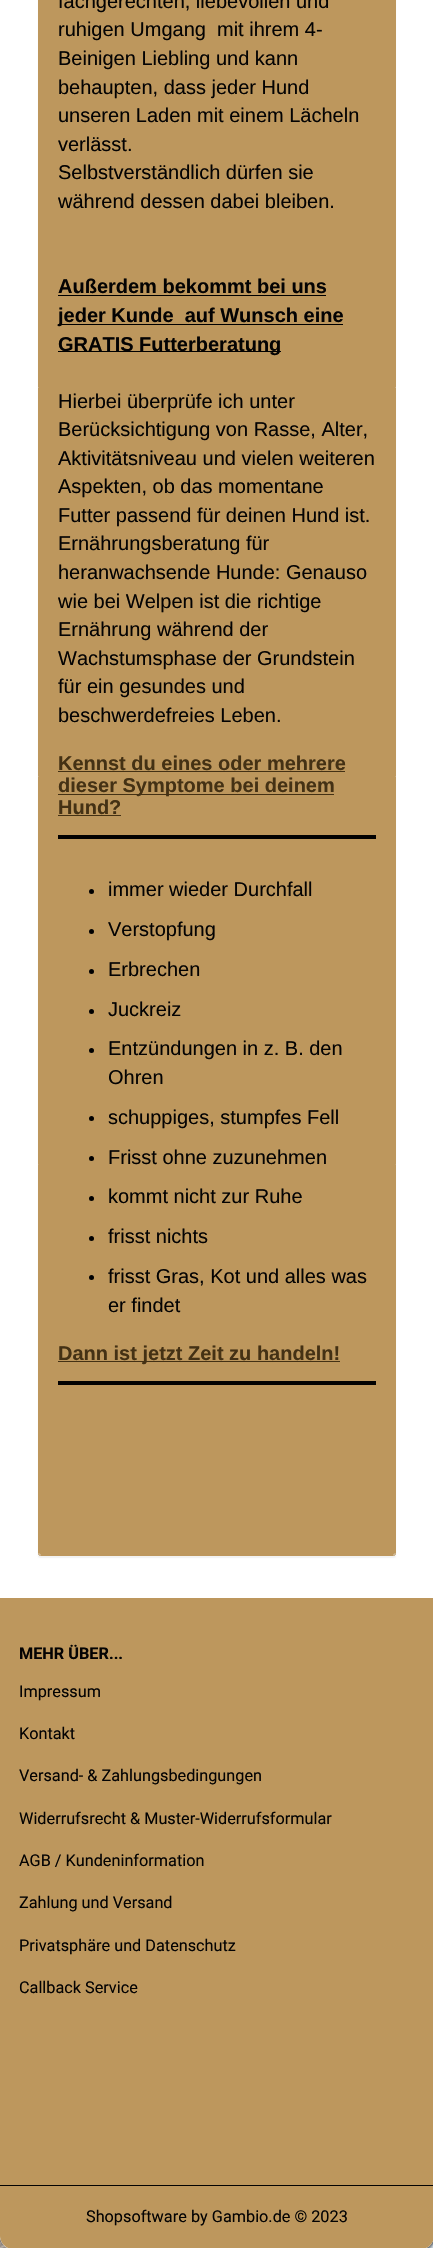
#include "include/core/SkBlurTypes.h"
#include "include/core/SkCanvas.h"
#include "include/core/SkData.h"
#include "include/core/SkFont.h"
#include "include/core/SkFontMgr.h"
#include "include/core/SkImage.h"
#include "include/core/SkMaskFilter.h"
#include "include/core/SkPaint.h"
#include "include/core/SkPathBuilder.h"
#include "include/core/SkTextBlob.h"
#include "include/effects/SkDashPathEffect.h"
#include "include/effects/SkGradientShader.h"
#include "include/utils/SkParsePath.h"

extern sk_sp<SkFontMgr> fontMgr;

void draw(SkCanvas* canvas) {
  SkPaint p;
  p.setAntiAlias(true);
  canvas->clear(SK_ColorWHITE);
  canvas->drawImageRect(SkImages::DeferredFromEncodedData(SkData::MakeFromFileName("images/1.png")), SkRect::MakeLTRB(0, 2236, 433, 2248), SkSamplingOptions());
  p.setColor(SK_ColorWHITE);
  canvas->drawRoundRect(SkRect::MakeLTRB(0, -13, 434, 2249), 13, 13, p);
  p.setColor(SkColorSetARGB(13, 0, 0, 0));
  p.setMaskFilter(SkMaskFilter::MakeBlur(kNormal_SkBlurStyle, 0.5f));
  canvas->drawRoundRect(SkRect::MakeLTRB(38, -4, 396, 1558), 2.5f, 2.5f, p);
  p.setMaskFilter(nullptr);
  p.setStyle(SkPaint::kStroke_Style);
  p.setStrokeWidth(1);
  p.setColor(SkColorSetRGB(189, 151, 93));
  canvas->drawRoundRect(SkRect::MakeLTRB(38.5f, -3.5f, 395.5f, 1555.5f), 2, 2, p);
  p.setStyle(SkPaint::kFill_Style);
  canvas->drawPath(SkPathBuilder().moveTo(39, -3).lineTo(395, -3).lineTo(395, 1552.5f).cubicTo(395, 1554, 394, 1555, 392.5f, 1555).lineTo(41.5f, 1555).cubicTo(40, 1555, 39, 1554, 39, 1552.5f).close().detach(), p);
  p.setColor(SK_ColorBLACK);
  canvas->drawRect(SkRect::MakeLTRB(58, 295, 326, 296), p);
  canvas->drawRect(SkRect::MakeLTRB(58, 324, 343, 325), p);
  canvas->drawRect(SkRect::MakeLTRB(58, 351, 281, 352), p);
  p.setColor(SkColorSetRGB(3, 2, 2));
  canvas->drawRect(SkRect::MakeLTRB(58, 835, 376, 839), p);
  p.setColor(SkColorSetRGB(68, 49, 20));
  canvas->drawRect(SkRect::MakeLTRB(58, 771, 345, 772), p);
  canvas->drawRect(SkRect::MakeLTRB(58, 794, 334, 795), p);
  canvas->drawRect(SkRect::MakeLTRB(58, 815, 121, 816), p);
  p.setColor(SK_ColorBLACK);
  canvas->drawCircle(91.5f, 891.5f, 2.5f, p);
  canvas->drawCircle(91.5f, 931.5f, 2.5f, p);
  canvas->drawCircle(91.5f, 971.5f, 2.5f, p);
  canvas->drawCircle(91.5f, 1011.5f, 2.5f, p);
  canvas->drawCircle(91.5f, 1050.5f, 2.5f, p);
  canvas->drawCircle(91.5f, 1118.5f, 2.5f, p);
  canvas->drawCircle(91.5f, 1158.5f, 2.5f, p);
  canvas->drawCircle(91.5f, 1198.5f, 2.5f, p);
  canvas->drawCircle(91.5f, 1238.5f, 2.5f, p);
  canvas->drawCircle(91.5f, 1277.5f, 2.5f, p);
  p.setColor(SkColorSetRGB(3, 2, 2));
  canvas->drawRect(SkRect::MakeLTRB(58, 1381, 376, 1385), p);
  p.setColor(SkColorSetRGB(68, 49, 20));
  canvas->drawRect(SkRect::MakeLTRB(58, 1361, 340, 1362), p);
  p.setColor(SkColorSetRGB(189, 151, 93));
  canvas->drawPath(SkPathBuilder().moveTo(0, 1598).lineTo(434, 1598).lineTo(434, 2236).cubicTo(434, 2243, 428, 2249, 421, 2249).lineTo(13, 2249).cubicTo(6, 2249, 0, 2243, 0, 2236).close().detach(), p);
  p.setColor(SkColorSetRGB(3, 2, 2));
  canvas->drawRect(SkRect::MakeLTRB(0, 2185, 433, 2186), p);
  SkFont font1(fontMgr->matchFamilyStyle("Liberation Sans", SkFontStyle::Normal()), 20);
  font1.setSubpixel(true);
  p.setColor(SkColorSetRGB(4, 3, 3));
  canvas->drawString("fachgerechten, liebevollen und", 58, 8, font1, p);
  canvas->drawString("ruhigen Umgang  mit ihrem 4-", 58, 36, font1, p);
  canvas->drawString("Beinigen Liebling und kann", 58, 65, font1, p);
  canvas->drawString("behaupten, dass jeder Hund", 58, 94, font1, p);
  canvas->drawString("unseren Laden mit einem Lächeln", 58, 122, font1, p);
  canvas->drawString("verlässt.", 58, 151, font1, p);
  canvas->drawString("Selbstverständlich dürfen sie", 58, 179, font1, p);
  canvas->drawString("während dessen dabei bleiben.", 58, 208, font1, p);
  SkFont font2(fontMgr->matchFamilyStyle("Liberation Sans", SkFontStyle::Bold()), 20);
  font2.setSubpixel(true);
  canvas->drawString("Außerdem bekommt bei uns", 58, 293, font2, p);
  canvas->drawString("jeder Kunde  auf Wunsch eine", 58, 322, font2, p);
  canvas->drawString("GRATIS Futterberatung", 58, 351, font2, p);
  canvas->drawString("Hierbei überprüfe ich unter", 58, 408, font1, p);
  canvas->drawString("Berücksichtigung von Rasse, Alter,", 58, 436, font1, p);
  canvas->drawString("Aktivitätsniveau und vielen weiteren", 58, 465, font1, p);
  canvas->drawString("Aspekten, ob das momentane", 58, 493, font1, p);
  canvas->drawString("Futter passend für deinen Hund ist.", 58, 522, font1, p);
  canvas->drawString("Ernährungsberatung für", 58, 550, font1, p);
  canvas->drawString("heranwachsende Hunde: Genauso", 58, 579, font1, p);
  canvas->drawString("wie bei Welpen ist die richtige", 58, 608, font1, p);
  canvas->drawString("Ernährung während der", 58, 636, font1, p);
  canvas->drawString("Wachstumsphase der Grundstein", 58, 665, font1, p);
  canvas->drawString("für ein gesundes und", 58, 693, font1, p);
  canvas->drawString("beschwerdefreies Leben.", 58, 722, font1, p);
  p.setColor(SkColorSetRGB(68, 49, 20));
  canvas->drawString("Kennst du eines oder mehrere", 58, 770, font2, p);
  canvas->drawString("dieser Symptome bei deinem", 58, 792, font2, p);
  canvas->drawString("Hund?", 58, 814, font2, p);
  p.setColor(SkColorSetRGB(4, 3, 3));
  canvas->drawString("immer wieder Durchfall", 108, 896, font1, p);
  canvas->drawString("Verstopfung", 108, 936, font1, p);
  canvas->drawString("Erbrechen", 108, 976, font1, p);
  canvas->drawString("Juckreiz", 108, 1016, font1, p);
  canvas->drawString("Entzündungen in z. B. den", 108, 1055, font1, p);
  canvas->drawString("Ohren", 108, 1084, font1, p);
  canvas->drawString("schuppiges, stumpfes Fell", 108, 1124, font1, p);
  canvas->drawString("Frisst ohne zuzunehmen", 108, 1164, font1, p);
  canvas->drawString("kommt nicht zur Ruhe", 108, 1203, font1, p);
  canvas->drawString("frisst nichts", 108, 1243, font1, p);
  canvas->drawString("frisst Gras, Kot und alles was", 108, 1283, font1, p);
  canvas->drawString("er findet", 108, 1312, font1, p);
  p.setColor(SkColorSetRGB(68, 49, 20));
  canvas->drawString("Dann ist jetzt Zeit zu handeln!", 58, 1360, font2, p);
  SkFont font3(fontMgr->matchFamilyStyle("Roboto", SkFontStyle::Bold()), 16.25f);
  font3.setSubpixel(true);
  p.setColor(SkColorSetRGB(4, 3, 3));
  canvas->drawString("MEHR ÜBER...", 19, 1659, font3, p);
  SkFont font4(fontMgr->matchFamilyStyle("Roboto", SkFontStyle::Normal()), 16.25f);
  font4.setSubpixel(true);
  canvas->drawString("Impressum", 19, 1697, font4, p);
  canvas->drawString("Kontakt", 19, 1739, font4, p);
  canvas->drawString("Versand- & Zahlungsbedingungen", 19, 1781, font4, p);
  canvas->drawString("Widerrufsrecht & Muster-Widerrufsformular", 19, 1824, font4, p);
  canvas->drawString("AGB / Kundeninformation", 19, 1866, font4, p);
  canvas->drawString("Zahlung und Versand", 19, 1908, font4, p);
  canvas->drawString("Privatsphäre und Datenschutz", 19, 1951, font4, p);
  canvas->drawString("Callback Service", 19, 1993, font4, p);
  canvas->drawString("Shopsoftware", 86, 2222, font4, p);
  canvas->drawString("by Gambio.de © 2023", 191, 2222, font4, p);
}
